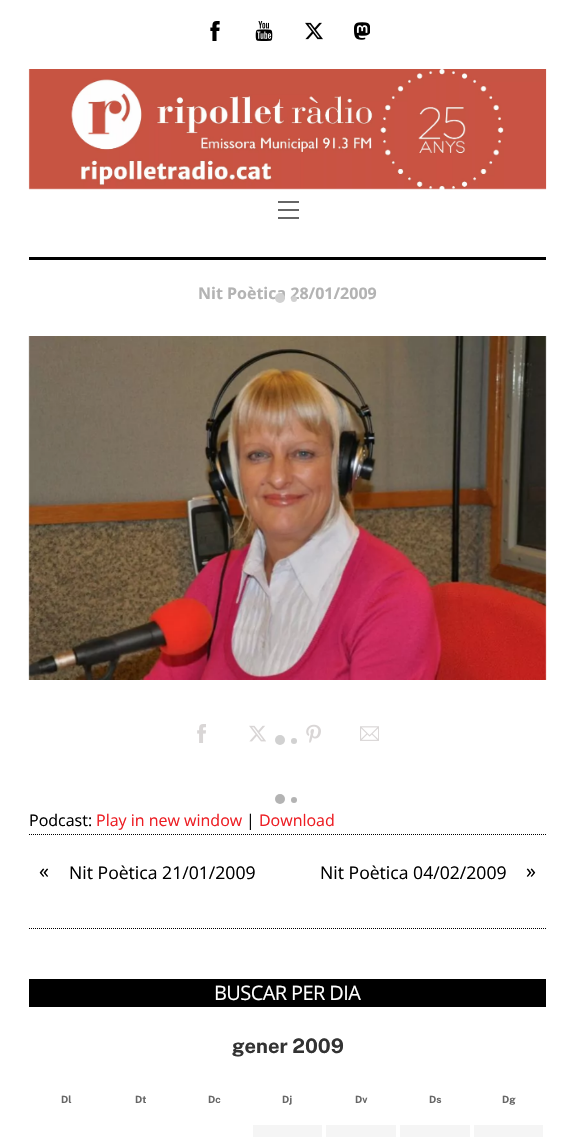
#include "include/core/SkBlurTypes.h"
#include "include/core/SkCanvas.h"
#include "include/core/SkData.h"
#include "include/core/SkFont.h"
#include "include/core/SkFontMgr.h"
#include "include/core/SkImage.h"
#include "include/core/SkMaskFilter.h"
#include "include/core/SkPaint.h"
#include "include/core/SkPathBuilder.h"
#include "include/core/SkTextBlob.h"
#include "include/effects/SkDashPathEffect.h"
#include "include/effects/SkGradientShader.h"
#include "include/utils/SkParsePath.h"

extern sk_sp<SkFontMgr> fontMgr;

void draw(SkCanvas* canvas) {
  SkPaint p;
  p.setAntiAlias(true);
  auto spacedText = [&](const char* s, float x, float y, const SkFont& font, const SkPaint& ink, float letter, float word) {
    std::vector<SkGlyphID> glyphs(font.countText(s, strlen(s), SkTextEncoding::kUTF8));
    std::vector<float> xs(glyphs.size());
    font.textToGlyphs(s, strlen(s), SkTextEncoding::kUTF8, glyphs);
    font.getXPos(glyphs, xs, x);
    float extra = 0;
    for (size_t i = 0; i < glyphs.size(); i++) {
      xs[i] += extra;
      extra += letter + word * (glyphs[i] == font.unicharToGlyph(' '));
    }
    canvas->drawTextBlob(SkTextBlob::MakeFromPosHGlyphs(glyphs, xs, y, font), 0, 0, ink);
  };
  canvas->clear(SK_ColorWHITE);
  canvas->drawImageRect(SkImages::DeferredFromEncodedData(SkData::MakeFromFileName("images/1.png")), SkRect::MakeLTRB(210, 21, 220, 41), SkSamplingOptions());
  canvas->drawImageRect(SkImages::DeferredFromEncodedData(SkData::MakeFromFileName("images/2.png")), SkRect::MakeLTRB(255, 21, 273, 41), SkSamplingOptions());
  canvas->drawImageRect(SkImages::DeferredFromEncodedData(SkData::MakeFromFileName("images/3.png")), SkRect::MakeLTRB(305, 22, 323, 40), SkSamplingOptions());
  canvas->drawImageRect(SkImages::DeferredFromEncodedData(SkData::MakeFromFileName("images/4.png")), SkRect::MakeLTRB(354, 22, 370, 40), SkSamplingOptions());
  canvas->drawImageRect(SkImages::DeferredFromEncodedData(SkData::MakeFromFileName("images/5.png")), SkRect::MakeLTRB(28, 69, 547, 190), SkSamplingOptions());
  p.setColor(SkColorSetRGB(102, 102, 102));
  canvas->drawRect(SkRect::MakeLTRB(278, 217, 299, 219), p);
  canvas->drawRect(SkRect::MakeLTRB(278, 201, 299, 203), p);
  canvas->drawRect(SkRect::MakeLTRB(278, 209, 299, 211), p);
  p.setColor(SK_ColorBLACK);
  canvas->drawRect(SkRect::MakeLTRB(29, 257, 546, 260), p);
  canvas->drawImageRect(SkImages::DeferredFromEncodedData(SkData::MakeFromFileName("images/6.png")), SkRect::MakeLTRB(28, 336, 547, 680), SkSamplingOptions());
  canvas->drawImageRect(SkImages::DeferredFromEncodedData(SkData::MakeFromFileName("images/7.png")), SkRect::MakeLTRB(197, 724, 206, 743), SkSamplingOptions());
  canvas->drawImageRect(SkImages::DeferredFromEncodedData(SkData::MakeFromFileName("images/8.png")), SkRect::MakeLTRB(249, 725, 266, 742), SkSamplingOptions());
  canvas->drawImageRect(SkImages::DeferredFromEncodedData(SkData::MakeFromFileName("images/9.png")), SkRect::MakeLTRB(306, 724, 321, 743), SkSamplingOptions());
  canvas->drawImageRect(SkImages::DeferredFromEncodedData(SkData::MakeFromFileName("images/10.png")), SkRect::MakeLTRB(360, 726, 379, 741), SkSamplingOptions());
  p.setColor(SkColorSetRGB(209, 209, 209));
  canvas->drawCircle(280, 740, 5, p);
  canvas->drawCircle(294, 741, 3, p);
  p.setColor(SkColorSetRGB(179, 179, 179));
  canvas->drawCircle(280, 799, 5, p);
  canvas->drawCircle(294, 800, 3, p);
  p.setStyle(SkPaint::kStroke_Style);
  p.setStrokeWidth(1);
  p.setColor(SK_ColorBLACK);
  p.setPathEffect(SkDashPathEffect::Make({{1, 1}}, 0));
  canvas->drawPath(SkPathBuilder().moveTo(29, 834.5f).lineTo(546, 834.5f).detach(), p);
  p.setPathEffect(nullptr);
  p.setPathEffect(SkDashPathEffect::Make({{1, 1}}, 0));
  canvas->drawPath(SkPathBuilder().moveTo(29, 928.5f).lineTo(546, 928.5f).detach(), p);
  p.setPathEffect(nullptr);
  p.setStyle(SkPaint::kFill_Style);
  canvas->drawRect(SkRect::MakeLTRB(29, 979, 546, 1007), p);
  p.setColor(SkColorSetRGB(245, 245, 245));
  canvas->drawRect(SkRect::MakeLTRB(253, 1125, 322, 1137), p);
  canvas->drawRect(SkRect::MakeLTRB(326, 1125, 396, 1137), p);
  canvas->drawRect(SkRect::MakeLTRB(400, 1125, 470, 1137), p);
  canvas->drawRect(SkRect::MakeLTRB(474, 1125, 543, 1137), p);
  SkFont font1(fontMgr->matchFamilyStyle("Open Sans", SkFontStyle::Bold()), 16);
  font1.setSubpixel(true);
  p.setColor(SkColorSetRGB(179, 179, 179));
  canvas->drawString("Nit Poètica 28/01/2009", 198, 299, font1, p);
  p.setColor(SkColorSetRGB(209, 209, 209));
  canvas->drawCircle(280, 298, 5, p);
  canvas->drawCircle(294, 299, 3, p);
  SkFont font2(fontMgr->matchFamilyStyle("Open Sans", SkFontStyle::Normal()), 16);
  font2.setSubpixel(true);
  p.setColor(SK_ColorBLACK);
  canvas->drawString("Podcast:", 29, 826, font2, p);
  p.setColor(SkColorSetRGB(237, 30, 36));
  canvas->drawString("Play in new window", 96, 826, font2, p);
  p.setColor(SK_ColorBLACK);
  canvas->drawString("|", 246, 826, font2, p);
  p.setColor(SkColorSetRGB(237, 30, 36));
  canvas->drawString("Download", 259, 826, font2, p);
  SkFont font3(fontMgr->matchFamilyStyle("Open Sans", SkFontStyle::Normal()), 20);
  font3.setSubpixel(true);
  p.setColor(SK_ColorBLACK);
  canvas->drawString("«", 39, 878, font3, p);
  SkFont font4(fontMgr->matchFamilyStyle("Open Sans", SkFontStyle::Normal()), 17.6f);
  font4.setSubpixel(true);
  canvas->drawString("Nit Poètica 21/01/2009", 69, 879, font4, p);
  canvas->drawString("Nit Poètica 04/02/2009", 320, 879, font4, p);
  canvas->drawString("»", 526, 878, font3, p);
  p.setColor(SK_ColorWHITE);
  spacedText("BUSCAR PER DIA", 214, 1000, font3, p, -0.6f, 0);
  SkFont font5(fontMgr->matchFamilyStyle("Public Sans", SkFontStyle::Bold()), 20);
  font5.setSubpixel(true);
  p.setColor(SkColorSetRGB(51, 51, 51));
  canvas->drawString("gener 2009", 232, 1053, font5, p);
  SkFont font6(fontMgr->matchFamilyStyle("Public Sans", SkFontStyle::Bold()), 10);
  font6.setSubpixel(true);
  p.setColor(SkColorSetRGB(102, 102, 102));
  canvas->drawString("Dl", 61, 1103, font6, p);
  canvas->drawString("Dt", 135, 1103, font6, p);
  canvas->drawString("Dc", 208, 1103, font6, p);
  canvas->drawString("Dj", 282, 1103, font6, p);
  canvas->drawString("Dv", 355, 1103, font6, p);
  canvas->drawString("Ds", 429, 1103, font6, p);
  canvas->drawString("Dg", 502, 1103, font6, p);
}
